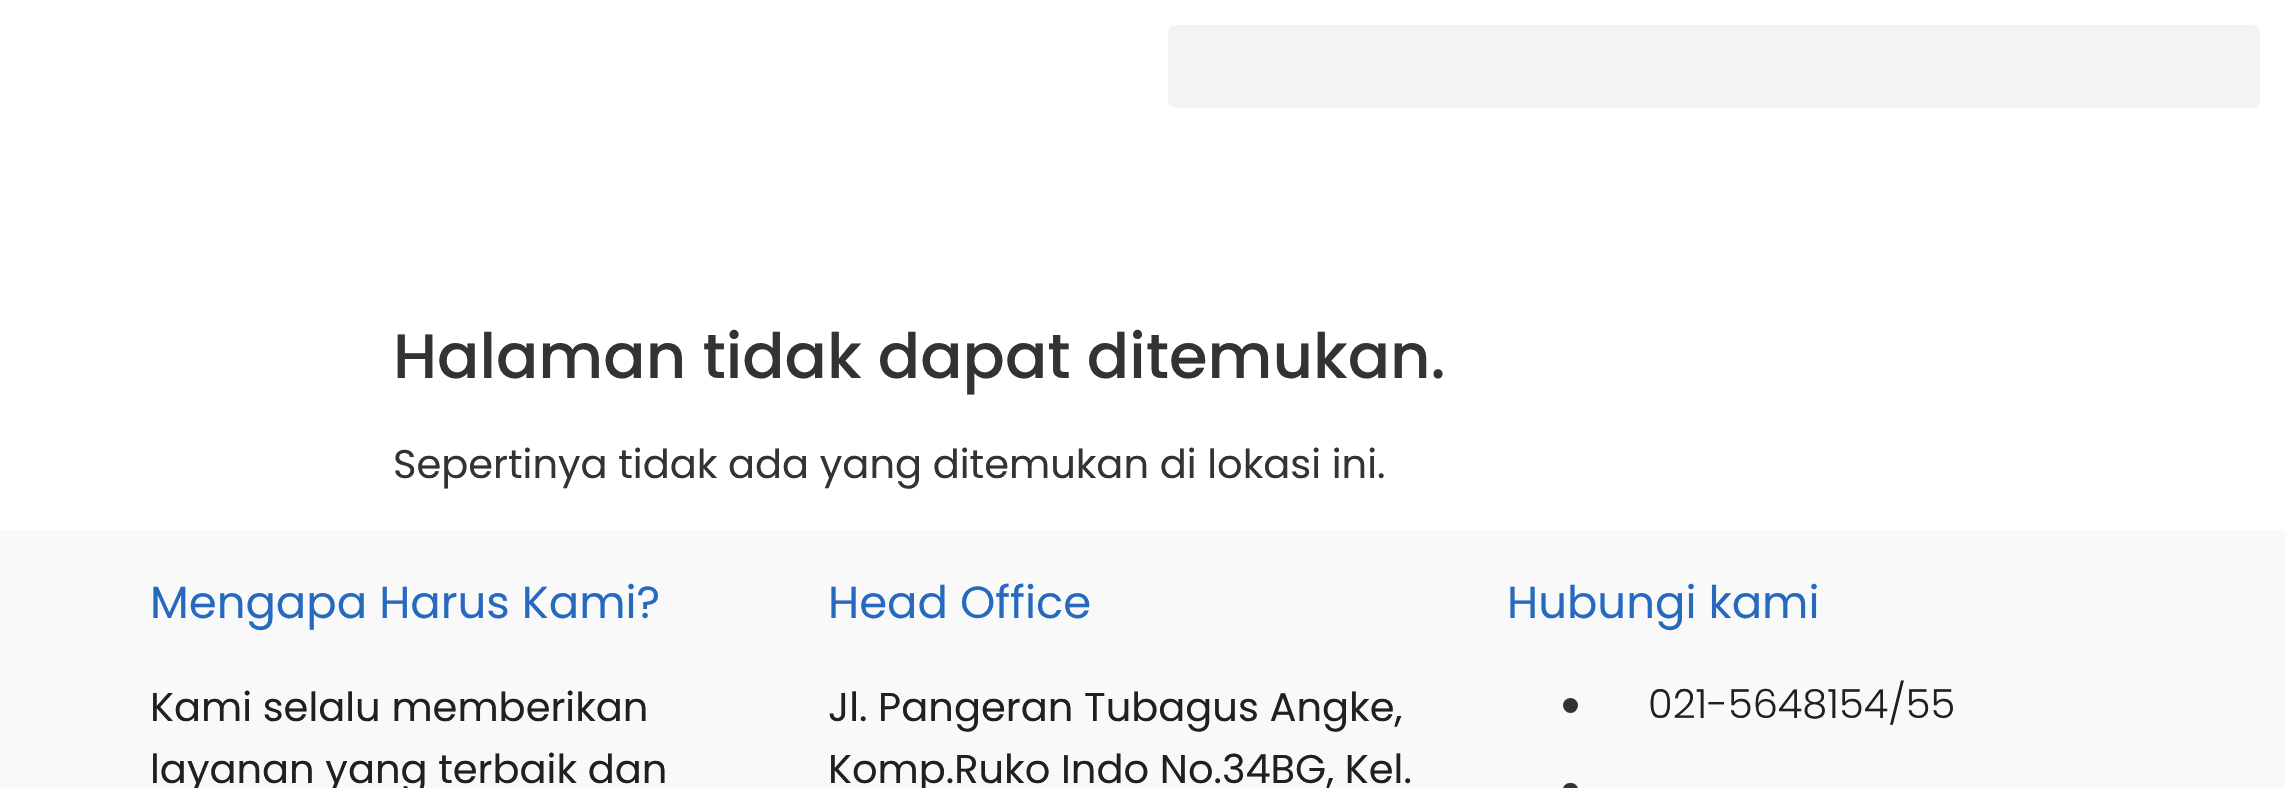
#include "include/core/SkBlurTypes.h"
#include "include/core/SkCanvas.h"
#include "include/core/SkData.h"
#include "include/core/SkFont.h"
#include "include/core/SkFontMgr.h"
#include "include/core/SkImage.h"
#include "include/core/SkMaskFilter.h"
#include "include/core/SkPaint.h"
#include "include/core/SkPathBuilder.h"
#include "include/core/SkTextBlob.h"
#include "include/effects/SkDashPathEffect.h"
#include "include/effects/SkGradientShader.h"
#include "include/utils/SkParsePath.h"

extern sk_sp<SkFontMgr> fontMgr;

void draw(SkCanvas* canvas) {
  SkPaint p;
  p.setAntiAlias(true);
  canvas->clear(SK_ColorWHITE);
  p.setColor(SkColorSetRGB(243, 243, 243));
  canvas->drawRoundRect(SkRect::MakeLTRB(1168, 25, 2260, 108), 8, 8, p);
  p.setColor(SkColorSetRGB(249, 249, 249));
  canvas->drawRect(SkRect::MakeLTRB(0, 530, 2285, 788), p);
  p.setColor(SkColorSetRGB(51, 51, 51));
  canvas->drawCircle(1570.5f, 705.5f, 7.5f, p);
  canvas->drawRoundRect(SkRect::MakeLTRB(1563, 783, 1578, 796), 7.5f, 7.5f, p);
  SkFont font1(fontMgr->matchFamilyStyle("Poppins", SkFontStyle(500, SkFontStyle::kNormal_Width, SkFontStyle::kUpright_Slant)), 62.5f);
  font1.setSubpixel(true);
  canvas->drawString("Halaman tidak dapat ditemukan.", 393, 378, font1, p);
  SkFont font2(fontMgr->matchFamilyStyle("Poppins", SkFontStyle::Normal()), 40);
  font2.setSubpixel(true);
  canvas->drawString("Sepertinya tidak ada yang ditemukan di lokasi ini.", 393, 478, font2, p);
  SkFont font3(fontMgr->matchFamilyStyle("Poppins", SkFontStyle::Normal()), 45);
  font3.setSubpixel(true);
  p.setColor(SkColorSetRGB(38, 105, 190));
  canvas->drawString("Mengapa Harus Kami?", 150, 618, font3, p);
  p.setColor(SkColorSetRGB(33, 31, 31));
  canvas->drawString("Kami selalu memberikan", 150, 721, font2, p);
  canvas->drawString("layanan yang terbaik dan", 150, 783, font2, p);
  p.setColor(SkColorSetRGB(38, 105, 190));
  canvas->drawString("Head Office", 828, 618, font3, p);
  p.setColor(SkColorSetRGB(33, 31, 31));
  canvas->drawString("Jl. Pangeran Tubagus Angke,", 828, 721, font2, p);
  canvas->drawString("Komp.Ruko Indo No.34BG, Kel.", 828, 783, font2, p);
  p.setColor(SkColorSetRGB(38, 105, 190));
  canvas->drawString("Hubungi kami", 1507, 618, font3, p);
  SkFont font4(fontMgr->matchFamilyStyle("Poppins", SkFontStyle(300, SkFontStyle::kNormal_Width, SkFontStyle::kUpright_Slant)), 40);
  font4.setSubpixel(true);
  p.setColor(SkColorSetRGB(33, 31, 31));
  canvas->drawString("021-5648154/55", 1648, 718, font4, p);
}
